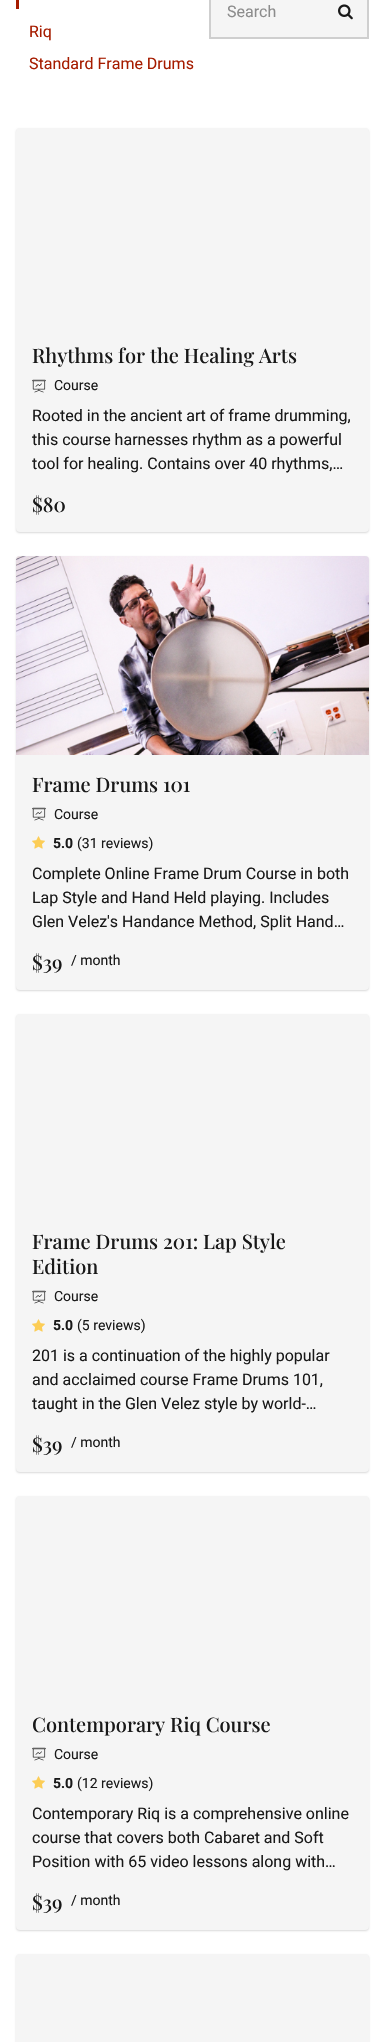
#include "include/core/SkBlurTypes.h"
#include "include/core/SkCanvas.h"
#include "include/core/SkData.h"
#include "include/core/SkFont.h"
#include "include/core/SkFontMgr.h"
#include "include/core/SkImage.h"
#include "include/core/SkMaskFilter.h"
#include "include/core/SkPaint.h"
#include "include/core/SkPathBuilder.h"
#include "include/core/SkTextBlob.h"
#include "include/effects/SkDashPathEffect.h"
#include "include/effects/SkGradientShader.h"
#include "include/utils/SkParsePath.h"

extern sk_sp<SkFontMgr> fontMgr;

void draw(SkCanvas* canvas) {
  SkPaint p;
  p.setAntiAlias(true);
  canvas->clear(SK_ColorWHITE);
  p.setColor(SkColorSetRGB(245, 245, 245));
  canvas->drawRect(SkRect::MakeLTRB(210, -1, 368, 38), p);
  p.setStyle(SkPaint::kStroke_Style);
  p.setStrokeWidth(2);
  p.setColor(SkColorSetRGB(207, 207, 207));
  canvas->drawRect(SkRect::MakeLTRB(210, -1, 368, 38), p);
  canvas->drawImageRect(SkImages::DeferredFromEncodedData(SkData::MakeFromFileName("images/1.png")), SkRect::MakeLTRB(338, 4, 353, 20), SkSamplingOptions());
  p.setStyle(SkPaint::kFill_Style);
  p.setColor(SkColorSetRGB(166, 28, 0));
  canvas->drawRect(SkRect::MakeLTRB(16, 0, 19, 9), p);
  p.setColor(SkColorSetARGB(38, 0, 0, 0));
  p.setMaskFilter(SkMaskFilter::MakeBlur(kNormal_SkBlurStyle, 1));
  canvas->drawRoundRect(SkRect::MakeLTRB(16, 129, 369, 533), 4, 4, p);
  p.setMaskFilter(nullptr);
  p.setColor(SkColorSetRGB(245, 245, 245));
  canvas->drawRoundRect(SkRect::MakeLTRB(16, 128, 369, 532), 4, 4, p);
  canvas->drawImageRect(SkImages::DeferredFromEncodedData(SkData::MakeFromFileName("images/2.png")), SkRect::MakeLTRB(32, 379, 46, 393), SkSamplingOptions());
  p.setColor(SkColorSetARGB(38, 0, 0, 0));
  p.setMaskFilter(SkMaskFilter::MakeBlur(kNormal_SkBlurStyle, 1));
  canvas->drawRoundRect(SkRect::MakeLTRB(16, 557, 369, 991), 4, 4, p);
  p.setMaskFilter(nullptr);
  p.setColor(SkColorSetRGB(245, 245, 245));
  canvas->drawRoundRect(SkRect::MakeLTRB(16, 556, 369, 990), 4, 4, p);
  canvas->drawImageRect(SkImages::DeferredFromEncodedData(SkData::MakeFromFileName("images/3.png")), SkRect::MakeLTRB(16, 556, 369, 755), SkSamplingOptions());
  canvas->drawImageRect(SkImages::DeferredFromEncodedData(SkData::MakeFromFileName("images/2.png")), SkRect::MakeLTRB(32, 807, 46, 821), SkSamplingOptions());
  canvas->drawImageRect(SkImages::DeferredFromEncodedData(SkData::MakeFromFileName("images/4.png")), SkRect::MakeLTRB(32, 836, 45, 849), SkSamplingOptions());
  p.setColor(SkColorSetARGB(38, 0, 0, 0));
  p.setMaskFilter(SkMaskFilter::MakeBlur(kNormal_SkBlurStyle, 1));
  canvas->drawRoundRect(SkRect::MakeLTRB(16, 1015, 369, 1473), 4, 4, p);
  p.setMaskFilter(nullptr);
  p.setColor(SkColorSetRGB(245, 245, 245));
  canvas->drawRoundRect(SkRect::MakeLTRB(16, 1014, 369, 1472), 4, 4, p);
  canvas->drawImageRect(SkImages::DeferredFromEncodedData(SkData::MakeFromFileName("images/2.png")), SkRect::MakeLTRB(32, 1290, 46, 1304), SkSamplingOptions());
  canvas->drawImageRect(SkImages::DeferredFromEncodedData(SkData::MakeFromFileName("images/4.png")), SkRect::MakeLTRB(32, 1319, 45, 1332), SkSamplingOptions());
  p.setColor(SkColorSetARGB(38, 0, 0, 0));
  p.setMaskFilter(SkMaskFilter::MakeBlur(kNormal_SkBlurStyle, 1));
  canvas->drawRoundRect(SkRect::MakeLTRB(16, 1497, 369, 1931), 4, 4, p);
  p.setMaskFilter(nullptr);
  p.setColor(SkColorSetRGB(245, 245, 245));
  canvas->drawRoundRect(SkRect::MakeLTRB(16, 1496, 369, 1930), 4, 4, p);
  canvas->drawImageRect(SkImages::DeferredFromEncodedData(SkData::MakeFromFileName("images/2.png")), SkRect::MakeLTRB(32, 1747, 46, 1761), SkSamplingOptions());
  canvas->drawImageRect(SkImages::DeferredFromEncodedData(SkData::MakeFromFileName("images/4.png")), SkRect::MakeLTRB(32, 1776, 45, 1789), SkSamplingOptions());
  p.setColor(SkColorSetARGB(38, 0, 0, 0));
  p.setMaskFilter(SkMaskFilter::MakeBlur(kNormal_SkBlurStyle, 1));
  canvas->drawRoundRect(SkRect::MakeLTRB(16, 1955, 369, 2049), 4, 4, p);
  p.setMaskFilter(nullptr);
  p.setColor(SkColorSetRGB(245, 245, 245));
  canvas->drawRoundRect(SkRect::MakeLTRB(16, 1954, 369, 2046), 4, 4, p);
  SkFont font1(fontMgr->matchFamilyStyle("Roboto", SkFontStyle::Normal()), 16);
  font1.setSubpixel(true);
  p.setColor(SkColorSetRGB(140, 140, 140));
  canvas->drawString("Search", 227, 17, font1, p);
  p.setColor(SkColorSetRGB(166, 28, 0));
  canvas->drawString("Riq", 29, 37, font1, p);
  canvas->drawString("Standard Frame Drums", 29, 69, font1, p);
  SkFont font2(fontMgr->matchFamilyStyle("Playfair Display", SkFontStyle(500, SkFontStyle::kNormal_Width, SkFontStyle::kUpright_Slant)), 20);
  font2.setSubpixel(true);
  p.setColor(SkColorSetRGB(25, 25, 25));
  canvas->drawString("Rhythms for the Healing Arts", 32, 363, font2, p);
  SkFont font3(fontMgr->matchFamilyStyle("Roboto", SkFontStyle::Normal()), 14);
  font3.setSubpixel(true);
  canvas->drawString("Course", 54, 390, font3, p);
  canvas->drawString("Rooted in the ancient art of frame drumming,", 32, 421, font1, p);
  canvas->drawString("this course harnesses rhythm as a powerful", 32, 445, font1, p);
  canvas->drawString("tool for healing. Contains over 40 rhythms,…", 32, 469, font1, p);
  canvas->drawString("$80", 32, 512, font2, p);
  canvas->drawString("Frame Drums 101", 32, 792, font2, p);
  canvas->drawString("Course", 54, 819, font3, p);
  SkFont font4(fontMgr->matchFamilyStyle("Roboto", SkFontStyle::Bold()), 14);
  font4.setSubpixel(true);
  canvas->drawString("5.0", 53, 848, font4, p);
  canvas->drawString("(31 reviews)", 77, 848, font3, p);
  canvas->drawString("Complete Online Frame Drum Course in both", 32, 879, font1, p);
  canvas->drawString("Lap Style and Hand Held playing. Includes", 32, 903, font1, p);
  canvas->drawString("Glen Velez's Handance Method, Split Hand…", 32, 927, font1, p);
  canvas->drawString("$39", 32, 970, font2, p);
  canvas->drawString("/ month", 71, 965, font3, p);
  canvas->drawString("Frame Drums 201: Lap Style", 32, 1249, font2, p);
  canvas->drawString("Edition", 32, 1274, font2, p);
  canvas->drawString("Course", 54, 1301, font3, p);
  canvas->drawString("5.0", 53, 1330, font4, p);
  canvas->drawString("(5 reviews)", 77, 1330, font3, p);
  canvas->drawString("201 is a continuation of the highly popular", 32, 1361, font1, p);
  canvas->drawString("and acclaimed course Frame Drums 101,", 32, 1385, font1, p);
  canvas->drawString("taught in the Glen Velez style by world-…", 32, 1409, font1, p);
  canvas->drawString("$39", 32, 1452, font2, p);
  canvas->drawString("/ month", 71, 1447, font3, p);
  canvas->drawString("Contemporary Riq Course", 32, 1732, font2, p);
  canvas->drawString("Course", 54, 1759, font3, p);
  canvas->drawString("5.0", 53, 1788, font4, p);
  canvas->drawString("(12 reviews)", 77, 1788, font3, p);
  canvas->drawString("Contemporary Riq is a comprehensive online", 32, 1819, font1, p);
  canvas->drawString("course that covers both Cabaret and Soft", 32, 1843, font1, p);
  canvas->drawString("Position with 65 video lessons along with…", 32, 1867, font1, p);
  canvas->drawString("$39", 32, 1910, font2, p);
  canvas->drawString("/ month", 71, 1905, font3, p);
}
